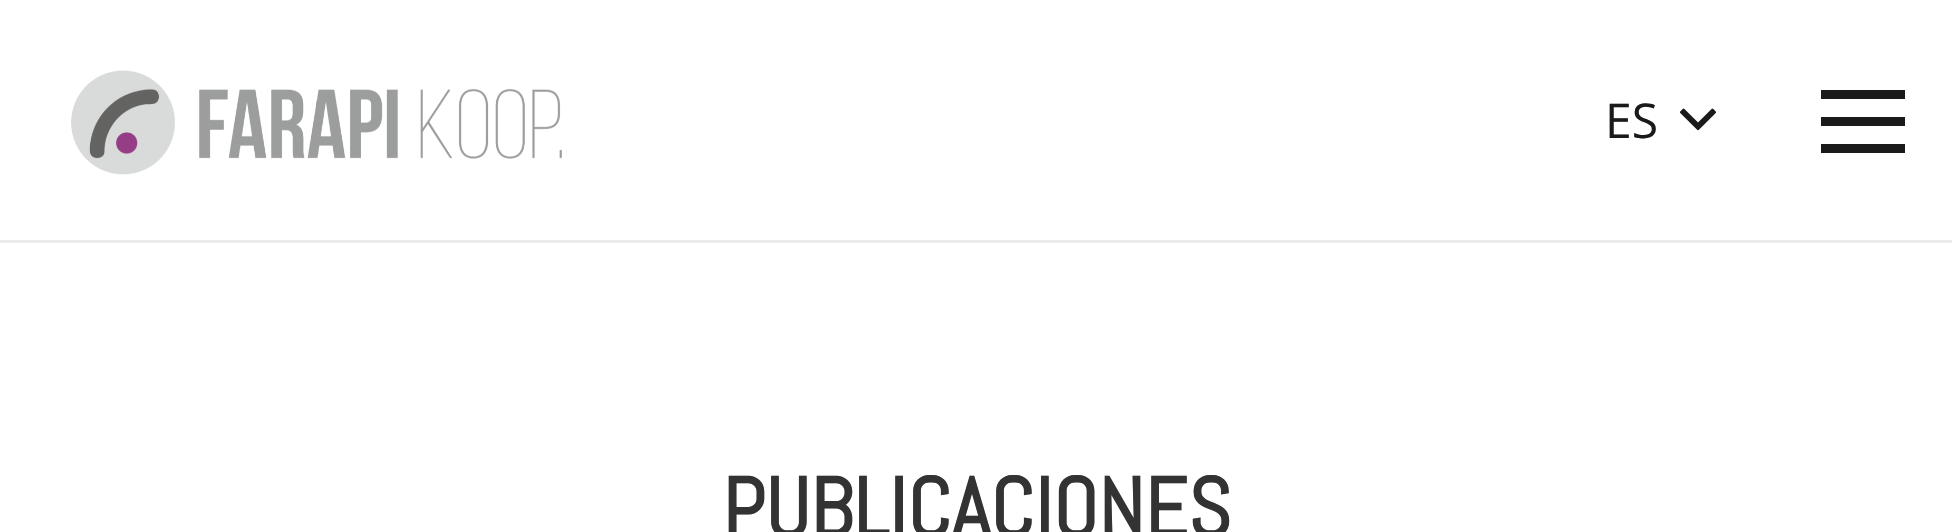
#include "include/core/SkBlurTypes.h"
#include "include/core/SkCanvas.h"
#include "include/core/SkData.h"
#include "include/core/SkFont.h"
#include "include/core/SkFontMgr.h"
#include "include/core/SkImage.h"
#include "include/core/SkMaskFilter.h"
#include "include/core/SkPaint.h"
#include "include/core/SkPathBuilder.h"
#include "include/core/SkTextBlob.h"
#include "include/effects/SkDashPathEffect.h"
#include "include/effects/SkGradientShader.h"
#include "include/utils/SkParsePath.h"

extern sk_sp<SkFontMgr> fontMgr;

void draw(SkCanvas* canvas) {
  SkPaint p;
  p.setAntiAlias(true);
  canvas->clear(SK_ColorWHITE);
  p.setColor(SkColorSetRGB(235, 235, 235));
  canvas->drawRect(SkRect::MakeLTRB(0, 240, 1952, 243), p);
  canvas->drawImageRect(SkImages::DeferredFromEncodedData(SkData::MakeFromFileName("images/1.png")), SkRect::MakeLTRB(71, 70, 562, 175), SkSamplingOptions());
  canvas->drawImageRect(SkImages::DeferredFromEncodedData(SkData::MakeFromFileName("images/2.png")), SkRect::MakeLTRB(1680, 108, 1716, 131), SkSamplingOptions());
  p.setColor(SkColorSetRGB(26, 26, 26));
  canvas->drawRect(SkRect::MakeLTRB(1821, 117, 1905, 126), p);
  canvas->drawRect(SkRect::MakeLTRB(1821, 90, 1905, 99), p);
  canvas->drawRect(SkRect::MakeLTRB(1821, 144, 1905, 153), p);
  SkFont font1(fontMgr->matchFamilyStyle("Open Sans", SkFontStyle::Normal()), 48);
  font1.setSubpixel(true);
  canvas->drawString("ES", 1605, 138, font1, p);
  SkFont font2(fontMgr->matchFamilyStyle("Abel", SkFontStyle::Bold()), 84);
  font2.setSubpixel(true);
  p.setColor(SkColorSetRGB(51, 51, 51));
  canvas->drawString("PUBLICACIONES", 722, 537, font2, p);
}
